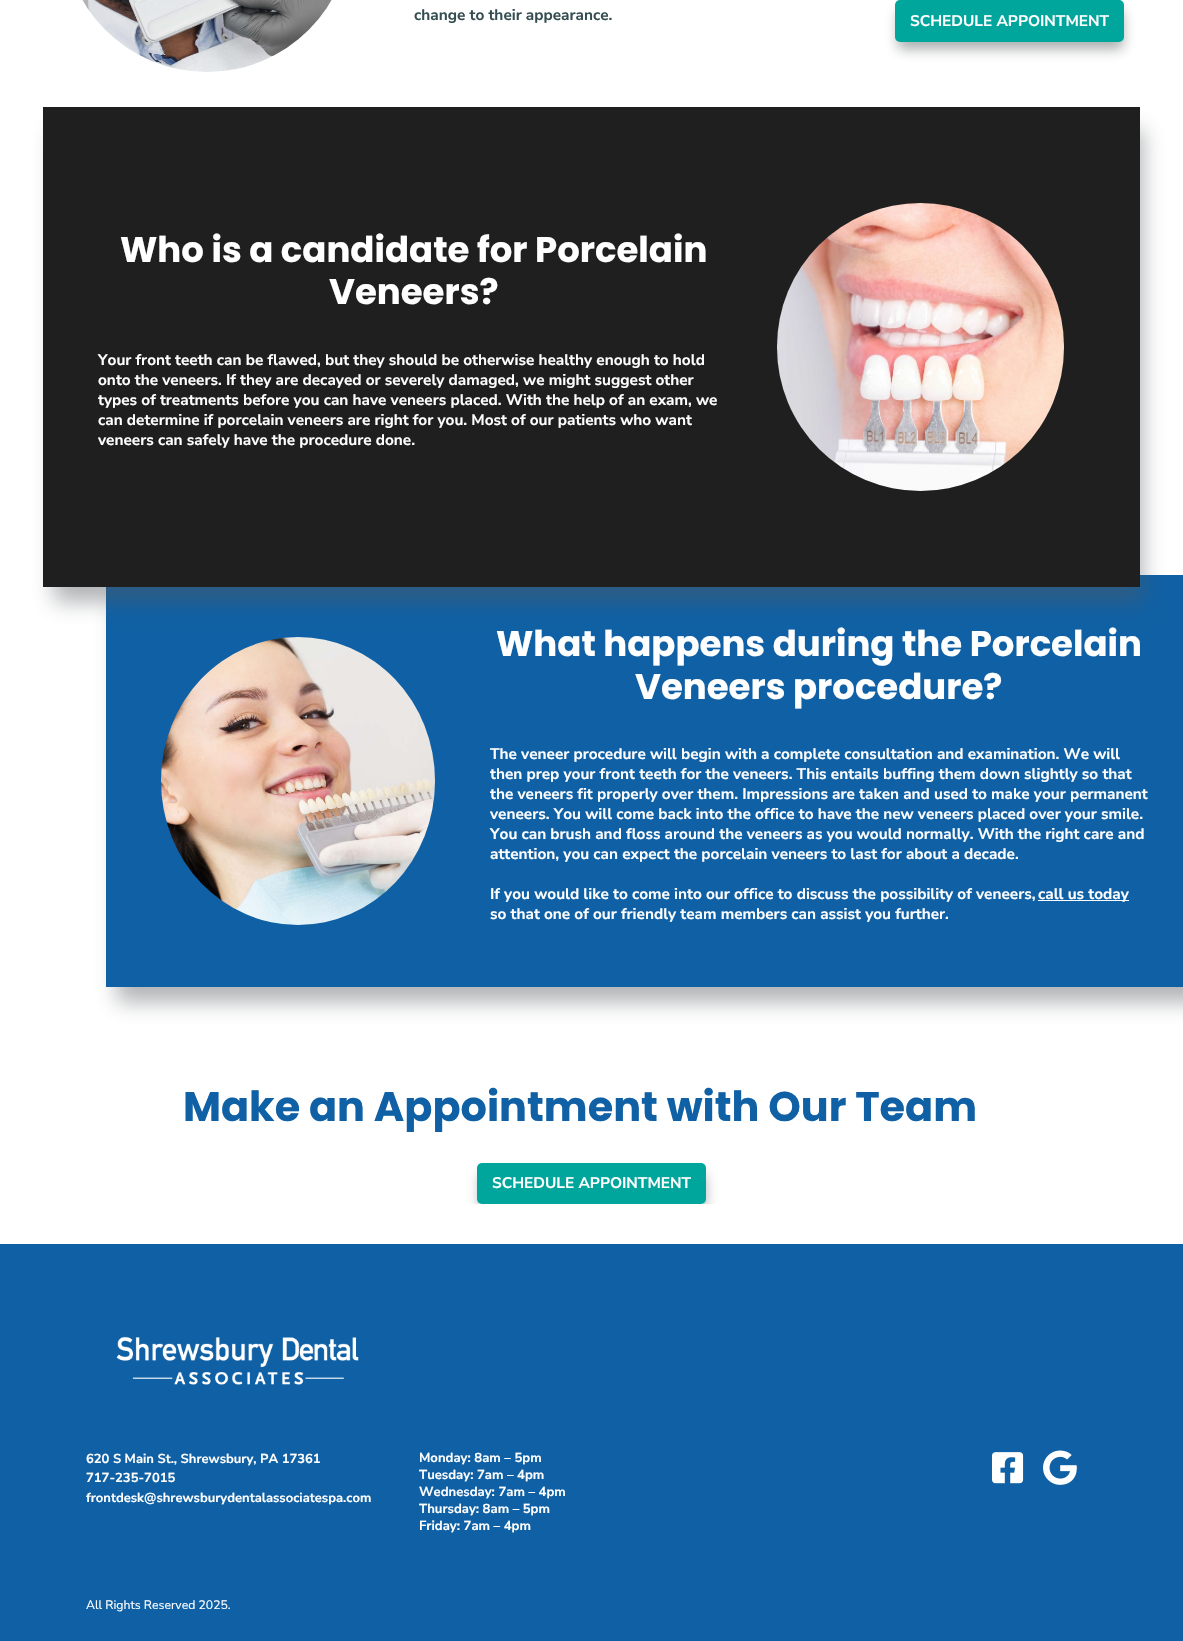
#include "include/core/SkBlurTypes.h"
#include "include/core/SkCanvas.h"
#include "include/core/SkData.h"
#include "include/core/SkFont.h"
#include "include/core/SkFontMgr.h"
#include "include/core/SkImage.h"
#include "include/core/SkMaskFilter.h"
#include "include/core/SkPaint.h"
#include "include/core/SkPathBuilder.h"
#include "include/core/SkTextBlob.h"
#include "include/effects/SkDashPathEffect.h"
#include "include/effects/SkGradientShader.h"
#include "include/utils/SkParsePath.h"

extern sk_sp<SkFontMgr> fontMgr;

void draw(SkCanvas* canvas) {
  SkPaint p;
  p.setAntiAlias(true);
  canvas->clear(SK_ColorWHITE);
  canvas->drawImageRect(SkImages::DeferredFromEncodedData(SkData::MakeFromFileName("images/1.png")), SkRect::MakeLTRB(82, 0, 332, 72), SkSamplingOptions());
  p.setColor(SkColorSetARGB(128, 82, 87, 90));
  p.setMaskFilter(SkMaskFilter::MakeBlur(kNormal_SkBlurStyle, 6.5f));
  canvas->drawRoundRect(SkRect::MakeLTRB(898, 11, 1123, 49), 3, 3, p);
  p.setMaskFilter(nullptr);
  p.setColor(SkColorSetRGB(0, 166, 156));
  canvas->drawRoundRect(SkRect::MakeLTRB(895, 0, 1124, 42), 5, 5, p);
  p.setColor(SkColorSetARGB(115, 82, 87, 90));
  p.setMaskFilter(SkMaskFilter::MakeBlur(kNormal_SkBlurStyle, 10));
  canvas->drawRect(SkRect::MakeLTRB(117, 598, 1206, 1002), p);
  p.setMaskFilter(nullptr);
  p.setColor(SkColorSetRGB(15, 96, 164));
  canvas->drawRect(SkRect::MakeLTRB(106, 575, 1183, 987), p);
  p.setColor(SkColorSetARGB(115, 82, 87, 90));
  p.setMaskFilter(SkMaskFilter::MakeBlur(kNormal_SkBlurStyle, 10));
  canvas->drawRect(SkRect::MakeLTRB(54, 130, 1143, 602), p);
  p.setMaskFilter(nullptr);
  p.setColor(SkColorSetRGB(31, 31, 31));
  canvas->drawRect(SkRect::MakeLTRB(43, 107, 1140, 587), p);
  canvas->drawImageRect(SkImages::DeferredFromEncodedData(SkData::MakeFromFileName("images/2.png")), SkRect::MakeLTRB(777, 203, 1064, 491), SkSamplingOptions());
  canvas->drawImageRect(SkImages::DeferredFromEncodedData(SkData::MakeFromFileName("images/3.png")), SkRect::MakeLTRB(161, 637, 435, 925), SkSamplingOptions());
  p.setColor(SK_ColorWHITE);
  canvas->drawRect(SkRect::MakeLTRB(1038, 900, 1129, 901), p);
  canvas->save();
  canvas->clipRect(SkRect::MakeLTRB(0, 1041, 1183, 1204));
  p.setColor(SkColorSetARGB(128, 82, 87, 90));
  p.setMaskFilter(SkMaskFilter::MakeBlur(kNormal_SkBlurStyle, 6.5f));
  canvas->drawRoundRect(SkRect::MakeLTRB(480, 1174, 705, 1211), 3, 3, p);
  p.setMaskFilter(nullptr);
  canvas->restore();
  p.setColor(SkColorSetRGB(0, 166, 156));
  canvas->drawRoundRect(SkRect::MakeLTRB(477, 1163, 706, 1204), 5, 5, p);
  p.setColor(SkColorSetRGB(15, 96, 164));
  canvas->drawRect(SkRect::MakeLTRB(0, 1244, 1183, 1641), p);
  canvas->drawImageRect(SkImages::DeferredFromEncodedData(SkData::MakeFromFileName("images/4.png")), SkRect::MakeLTRB(116, 1336, 359, 1385), SkSamplingOptions());
  canvas->drawImageRect(SkImages::DeferredFromEncodedData(SkData::MakeFromFileName("images/5.png")), SkRect::MakeLTRB(992, 1452, 1024, 1484), SkSamplingOptions());
  canvas->drawImageRect(SkImages::DeferredFromEncodedData(SkData::MakeFromFileName("images/6.png")), SkRect::MakeLTRB(1043, 1450, 1077, 1485), SkSamplingOptions());
  SkFont font1(fontMgr->matchFamilyStyle("Nunito Sans", SkFontStyle::Bold()), 15.4f);
  font1.setSubpixel(true);
  p.setColor(SkColorSetRGB(52, 77, 81));
  canvas->drawString("change to their appearance.", 414, 20, font1, p);
  p.setColor(SK_ColorWHITE);
  canvas->drawString("SCHEDULE APPOINTMENT", 910, 26, font1, p);
  SkFont font2(fontMgr->matchFamilyStyle("Poppins", SkFontStyle::Bold()), 35.5f);
  font2.setSubpixel(true);
  canvas->drawString("Who is a candidate for Porcelain", 120, 262, font2, p);
  canvas->drawString("Veneers?", 329, 304, font2, p);
  canvas->drawString("Your front teeth can be flawed, but they should be otherwise healthy enough to hold", 98, 365, font1, p);
  canvas->drawString("onto the veneers. If they are decayed or severely damaged, we might suggest other", 98, 385, font1, p);
  canvas->drawString("types of treatments before you can have veneers placed. With the help of an exam, we", 98, 405, font1, p);
  canvas->drawString("can determine if porcelain veneers are right for you. Most of our patients who want", 98, 425, font1, p);
  canvas->drawString("veneers can safely have the procedure done.", 98, 445, font1, p);
  canvas->drawString("What happens during the Porcelain", 496, 656, font2, p);
  canvas->drawString("Veneers procedure?", 635, 699, font2, p);
  canvas->drawString("The veneer procedure will begin with a complete consultation and examination. We will", 490, 759, font1, p);
  canvas->drawString("then prep your front teeth for the veneers. This entails buffing them down slightly so that", 490, 779, font1, p);
  canvas->drawString("the veneers fit properly over them. Impressions are taken and used to make your permanent", 490, 799, font1, p);
  canvas->drawString("veneers. You will come back into the office to have the new veneers placed over your smile.", 490, 819, font1, p);
  canvas->drawString("You can brush and floss around the veneers as you would normally. With the right care and", 490, 839, font1, p);
  canvas->drawString("attention, you can expect the porcelain veneers to last for about a decade.", 490, 859, font1, p);
  canvas->drawString("If you would like to come into our office to discuss the possibility of veneers,", 490, 899, font1, p);
  canvas->drawString("call us today", 1038, 899, font1, p);
  canvas->drawString("so that one of our friendly team members can assist you further.", 490, 919, font1, p);
  SkFont font3(fontMgr->matchFamilyStyle("Poppins", SkFontStyle::Bold()), 41.4f);
  font3.setSubpixel(true);
  p.setColor(SkColorSetRGB(15, 96, 164));
  canvas->drawString("Make an Appointment with Our Team", 183, 1121, font3, p);
  p.setColor(SK_ColorWHITE);
  canvas->drawString("SCHEDULE APPOINTMENT", 492, 1188, font1, p);
  SkFont font4(fontMgr->matchFamilyStyle("Nunito Sans", SkFontStyle::Bold()), 13);
  font4.setSubpixel(true);
  canvas->drawString("620 S Main St., Shrewsbury, PA 17361", 86, 1463, font4, p);
  canvas->drawString("717-235-7015", 86, 1482, font4, p);
  canvas->drawString("frontdesk@shrewsburydentalassociatespa.com", 86, 1502, font4, p);
  SkFont font5(fontMgr->matchFamilyStyle("Nunito Sans", SkFontStyle::Bold()), 13.1f);
  font5.setSubpixel(true);
  canvas->drawString("Monday: 8am – 5pm", 419, 1462, font5, p);
  canvas->drawString("Tuesday: 7am – 4pm", 419, 1479, font5, p);
  canvas->drawString("Wednesday: 7am – 4pm", 419, 1496, font5, p);
  canvas->drawString("Thursday: 8am – 5pm", 419, 1513, font5, p);
  canvas->drawString("Friday: 7am – 4pm", 419, 1530, font5, p);
  SkFont font6(fontMgr->matchFamilyStyle("Nunito Sans", SkFontStyle::Normal()), 12.25f);
  font6.setSubpixel(true);
  canvas->drawString("All Rights Reserved 2025.", 86, 1609, font6, p);
}
